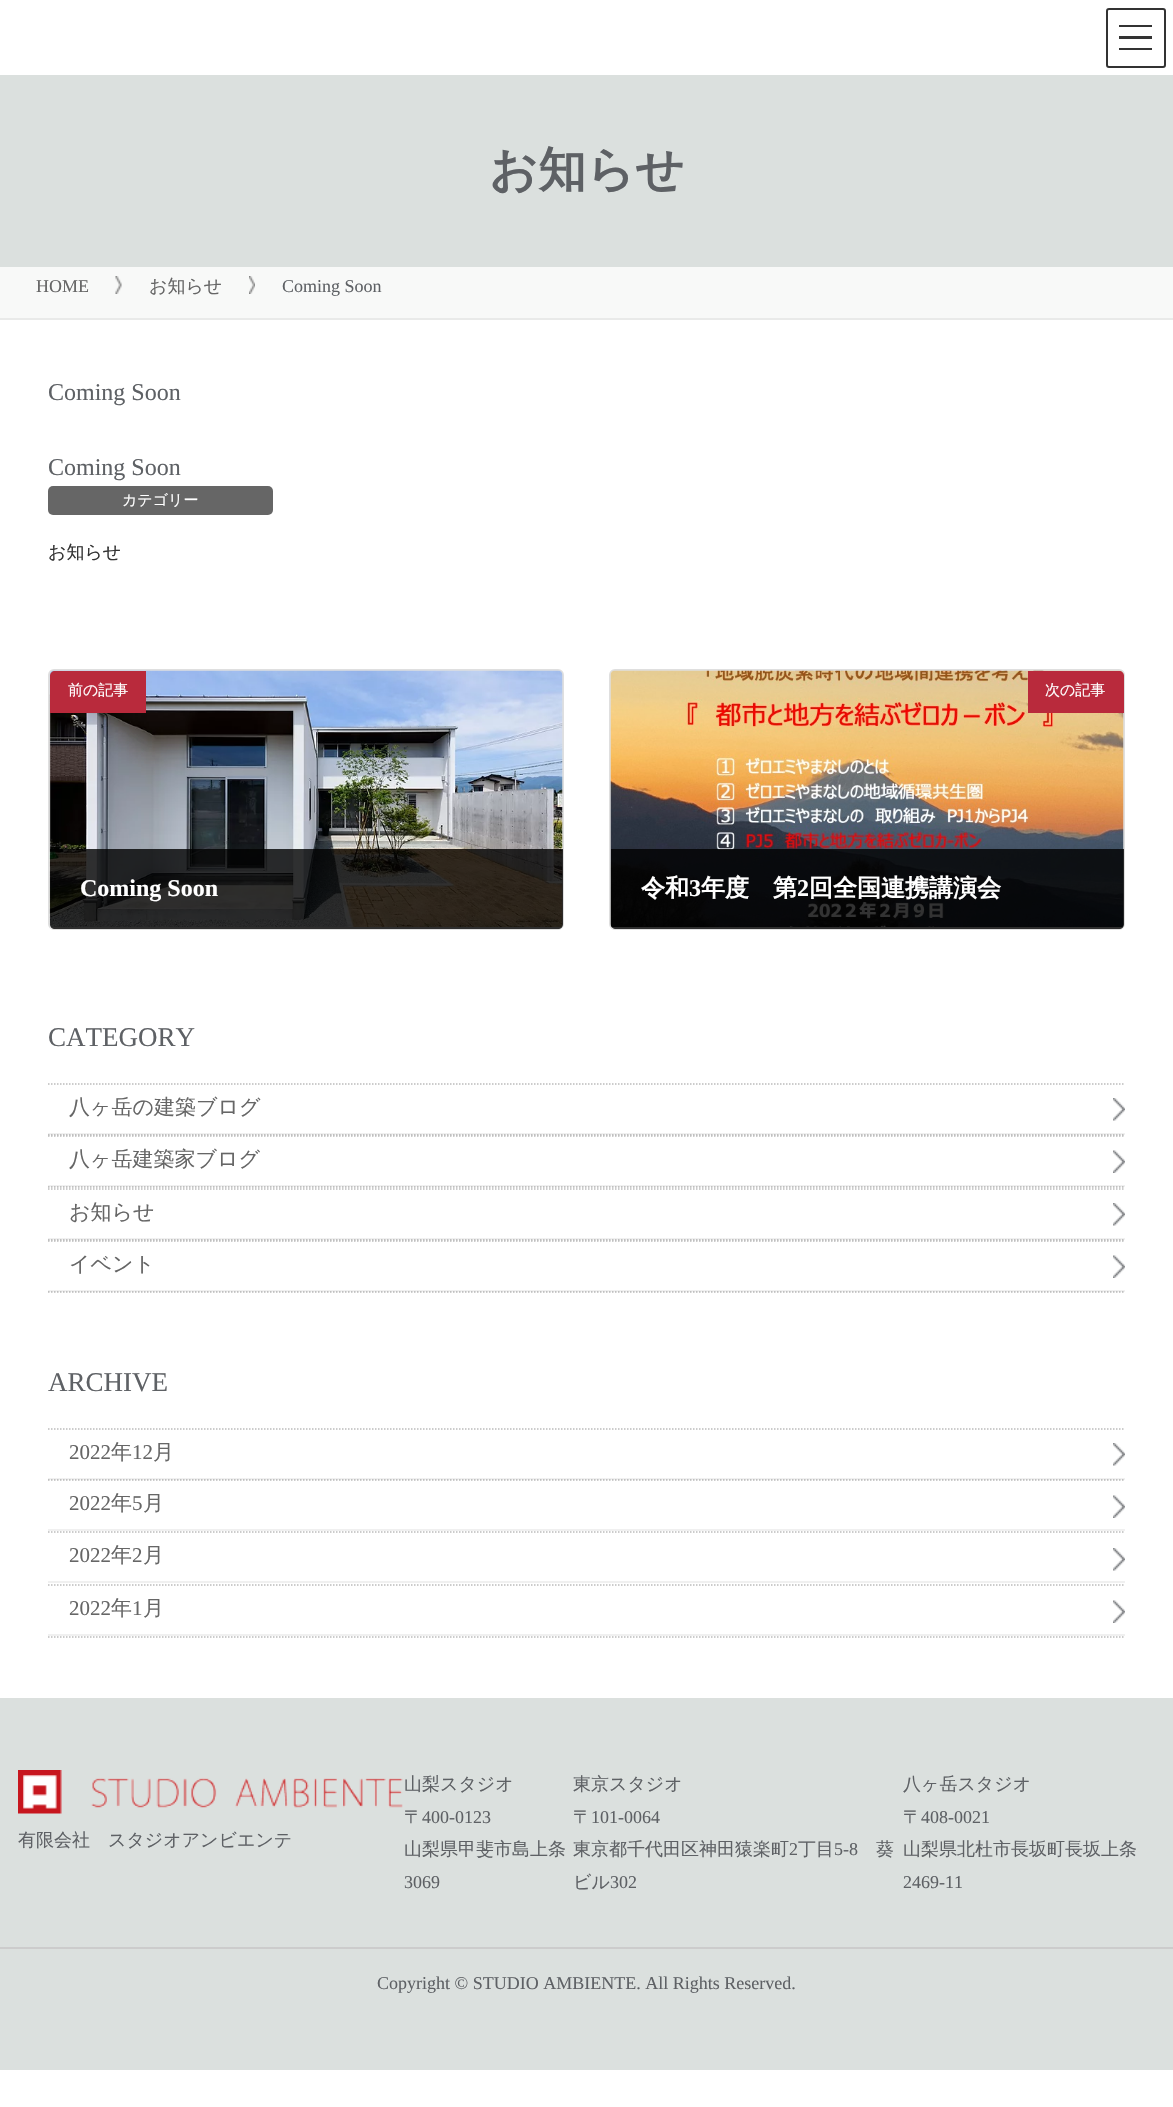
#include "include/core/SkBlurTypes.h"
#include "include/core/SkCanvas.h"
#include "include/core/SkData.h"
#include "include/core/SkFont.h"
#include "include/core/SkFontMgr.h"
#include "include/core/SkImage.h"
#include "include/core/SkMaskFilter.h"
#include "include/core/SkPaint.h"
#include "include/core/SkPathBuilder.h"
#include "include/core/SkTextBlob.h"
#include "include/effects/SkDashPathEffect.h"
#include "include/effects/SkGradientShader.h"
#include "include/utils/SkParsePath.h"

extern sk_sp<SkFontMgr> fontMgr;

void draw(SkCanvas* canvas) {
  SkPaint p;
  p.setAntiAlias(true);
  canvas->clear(SK_ColorWHITE);
  p.setColor(SkColorSetRGB(51, 51, 51));
  canvas->drawRect(SkRect::MakeLTRB(1119, 25, 1152, 27), p);
  canvas->drawRect(SkRect::MakeLTRB(1119, 36, 1152, 39), p);
  canvas->drawRect(SkRect::MakeLTRB(1119, 48, 1152, 50), p);
  p.setStyle(SkPaint::kStroke_Style);
  p.setStrokeWidth(2);
  canvas->drawRoundRect(SkRect::MakeLTRB(1107, 9, 1165, 67), 2, 2, p);
  p.setStyle(SkPaint::kFill_Style);
  p.setColor(SkColorSetRGB(219, 224, 222));
  canvas->drawRect(SkRect::MakeLTRB(0, 75, 1173, 267), p);
  p.setColor(SkColorSetRGB(248, 249, 248));
  canvas->drawRect(SkRect::MakeLTRB(0, 267, 1173, 318), p);
  p.setColor(SkColorSetRGB(233, 234, 233));
  canvas->drawRect(SkRect::MakeLTRB(0, 318, 1173, 320), p);
  canvas->drawImageRect(SkImages::DeferredFromEncodedData(SkData::MakeFromFileName("images/1.png")), SkRect::MakeLTRB(115, 276, 122, 294), SkSamplingOptions());
  canvas->drawImageRect(SkImages::DeferredFromEncodedData(SkData::MakeFromFileName("images/2.png")), SkRect::MakeLTRB(249, 276, 255, 294), SkSamplingOptions());
  p.setColor(SkColorSetRGB(102, 102, 102));
  canvas->drawRoundRect(SkRect::MakeLTRB(48, 486, 273, 515), 5, 5, p);
  p.setStyle(SkPaint::kStroke_Style);
  p.setColor(SkColorSetRGB(223, 223, 223));
  canvas->drawRoundRect(SkRect::MakeLTRB(49, 670, 563, 929), 5, 5, p);
  canvas->drawImageRect(SkImages::DeferredFromEncodedData(SkData::MakeFromFileName("images/3.png")), SkRect::MakeLTRB(49, 670, 563, 929), SkSamplingOptions());
  canvas->save();
  canvas->clipPath(SkPathBuilder().moveTo(55, 671).lineTo(558, 671).cubicTo(561, 671, 563, 673, 563, 676).lineTo(563, 924).cubicTo(563, 927, 561, 929, 558, 929).lineTo(55, 929).cubicTo(52, 929, 50, 927, 50, 924).lineTo(50, 676).cubicTo(50, 673, 52, 671, 55, 671).close().detach(), true);
  p.setStyle(SkPaint::kFill_Style);
  p.setColor(SkColorSetRGB(229, 229, 229));
  canvas->drawRect(SkRect::MakeLTRB(50, 927, 563, 929), p);
  canvas->restore();
  p.setColor(SkColorSetRGB(185, 42, 60));
  canvas->drawPath(SkPathBuilder().moveTo(55, 671).lineTo(146, 671).lineTo(146, 713).lineTo(50, 713).lineTo(50, 676).cubicTo(50, 673, 52, 671, 55, 671).close().detach(), p);
  p.setColor(SkColorSetARGB(204, 0, 0, 0));
  canvas->drawPath(SkPathBuilder().moveTo(50, 849).lineTo(563, 849).lineTo(563, 924).cubicTo(563, 927, 561, 929, 558, 929).lineTo(55, 929).cubicTo(52, 929, 50, 927, 50, 924).close().detach(), p);
  p.setStyle(SkPaint::kStroke_Style);
  p.setColor(SkColorSetRGB(223, 223, 223));
  canvas->drawRoundRect(SkRect::MakeLTRB(610, 670, 1124, 929), 5, 5, p);
  canvas->drawImageRect(SkImages::DeferredFromEncodedData(SkData::MakeFromFileName("images/4.png")), SkRect::MakeLTRB(610, 670, 1124, 929), SkSamplingOptions());
  canvas->save();
  canvas->clipPath(SkPathBuilder().moveTo(616, 671).lineTo(1119, 671).cubicTo(1122, 671, 1124, 673, 1124, 676).lineTo(1124, 924).cubicTo(1124, 927, 1122, 929, 1119, 929).lineTo(616, 929).cubicTo(613, 929, 611, 927, 611, 924).lineTo(611, 676).cubicTo(611, 673, 613, 671, 616, 671).close().detach(), true);
  p.setStyle(SkPaint::kFill_Style);
  p.setColor(SkColorSetRGB(229, 229, 229));
  canvas->drawRect(SkRect::MakeLTRB(611, 927, 1124, 929), p);
  canvas->restore();
  p.setColor(SkColorSetRGB(185, 42, 60));
  canvas->drawPath(SkPathBuilder().moveTo(1028, 671).lineTo(1119, 671).cubicTo(1122, 671, 1124, 673, 1124, 676).lineTo(1124, 713).lineTo(1028, 713).close().detach(), p);
  p.setColor(SkColorSetARGB(204, 0, 0, 0));
  canvas->drawPath(SkPathBuilder().moveTo(611, 849).lineTo(1124, 849).lineTo(1124, 924).cubicTo(1124, 927, 1122, 929, 1119, 929).lineTo(616, 929).cubicTo(613, 929, 611, 927, 611, 924).close().detach(), p);
  canvas->drawImageRect(SkImages::DeferredFromEncodedData(SkData::MakeFromFileName("images/5.png")), SkRect::MakeLTRB(1113, 1098, 1125, 1121), SkSamplingOptions());
  p.setStyle(SkPaint::kStroke_Style);
  p.setStrokeWidth(1.5f);
  p.setColor(SkColorSetRGB(188, 188, 188));
  p.setPathEffect(SkDashPathEffect::Make({{1.5f, 1.5f}}, 0));
  canvas->drawPath(SkPathBuilder().moveTo(48, 1084).lineTo(1125, 1084).detach(), p);
  p.setPathEffect(nullptr);
  p.setPathEffect(SkDashPathEffect::Make({{1.5f, 1.5f}}, 0));
  canvas->drawPath(SkPathBuilder().moveTo(48, 1135).lineTo(1125, 1135).detach(), p);
  p.setPathEffect(nullptr);
  p.setStyle(SkPaint::kFill_Style);
  p.setColor(SkColorSetARGB(15, 0, 0, 0));
  canvas->drawRect(SkRect::MakeLTRB(48, 1133, 1125, 1135), p);
  canvas->drawImageRect(SkImages::DeferredFromEncodedData(SkData::MakeFromFileName("images/6.png")), SkRect::MakeLTRB(1113, 1150, 1125, 1173), SkSamplingOptions());
  p.setStyle(SkPaint::kStroke_Style);
  p.setColor(SkColorSetRGB(188, 188, 188));
  p.setPathEffect(SkDashPathEffect::Make({{1.5f, 1.5f}}, 0));
  canvas->drawPath(SkPathBuilder().moveTo(48, 1136).lineTo(1125, 1136).detach(), p);
  p.setPathEffect(nullptr);
  p.setPathEffect(SkDashPathEffect::Make({{1.5f, 1.5f}}, 0));
  canvas->drawPath(SkPathBuilder().moveTo(48, 1187).lineTo(1125, 1187).detach(), p);
  p.setPathEffect(nullptr);
  p.setStyle(SkPaint::kFill_Style);
  p.setColor(SkColorSetARGB(15, 0, 0, 0));
  canvas->drawRect(SkRect::MakeLTRB(48, 1185, 1125, 1187), p);
  canvas->drawImageRect(SkImages::DeferredFromEncodedData(SkData::MakeFromFileName("images/5.png")), SkRect::MakeLTRB(1113, 1203, 1125, 1226), SkSamplingOptions());
  p.setStyle(SkPaint::kStroke_Style);
  p.setColor(SkColorSetRGB(188, 188, 188));
  p.setPathEffect(SkDashPathEffect::Make({{1.5f, 1.5f}}, 0));
  canvas->drawPath(SkPathBuilder().moveTo(48, 1189).lineTo(1125, 1189).detach(), p);
  p.setPathEffect(nullptr);
  p.setPathEffect(SkDashPathEffect::Make({{1.5f, 1.5f}}, 0));
  canvas->drawPath(SkPathBuilder().moveTo(48, 1240).lineTo(1125, 1240).detach(), p);
  p.setPathEffect(nullptr);
  p.setStyle(SkPaint::kFill_Style);
  p.setColor(SkColorSetARGB(15, 0, 0, 0));
  canvas->drawRect(SkRect::MakeLTRB(48, 1238, 1125, 1240), p);
  canvas->drawImageRect(SkImages::DeferredFromEncodedData(SkData::MakeFromFileName("images/6.png")), SkRect::MakeLTRB(1113, 1255, 1125, 1278), SkSamplingOptions());
  p.setStyle(SkPaint::kStroke_Style);
  p.setColor(SkColorSetRGB(188, 188, 188));
  p.setPathEffect(SkDashPathEffect::Make({{1.5f, 1.5f}}, 0));
  canvas->drawPath(SkPathBuilder().moveTo(48, 1241).lineTo(1125, 1241).detach(), p);
  p.setPathEffect(nullptr);
  p.setPathEffect(SkDashPathEffect::Make({{1.5f, 1.5f}}, 0));
  canvas->drawPath(SkPathBuilder().moveTo(48, 1292).lineTo(1125, 1292).detach(), p);
  p.setPathEffect(nullptr);
  p.setStyle(SkPaint::kFill_Style);
  p.setColor(SkColorSetARGB(15, 0, 0, 0));
  canvas->drawRect(SkRect::MakeLTRB(48, 1290, 1125, 1292), p);
  canvas->drawImageRect(SkImages::DeferredFromEncodedData(SkData::MakeFromFileName("images/5.png")), SkRect::MakeLTRB(1113, 1443, 1125, 1466), SkSamplingOptions());
  p.setStyle(SkPaint::kStroke_Style);
  p.setColor(SkColorSetRGB(188, 188, 188));
  p.setPathEffect(SkDashPathEffect::Make({{1.5f, 1.5f}}, 0));
  canvas->drawPath(SkPathBuilder().moveTo(48, 1429).lineTo(1125, 1429).detach(), p);
  p.setPathEffect(nullptr);
  p.setPathEffect(SkDashPathEffect::Make({{1.5f, 1.5f}}, 0));
  canvas->drawPath(SkPathBuilder().moveTo(48, 1480).lineTo(1125, 1480).detach(), p);
  p.setPathEffect(nullptr);
  p.setStyle(SkPaint::kFill_Style);
  p.setColor(SkColorSetARGB(15, 0, 0, 0));
  canvas->drawRect(SkRect::MakeLTRB(48, 1478, 1125, 1480), p);
  canvas->drawImageRect(SkImages::DeferredFromEncodedData(SkData::MakeFromFileName("images/6.png")), SkRect::MakeLTRB(1113, 1495, 1125, 1518), SkSamplingOptions());
  p.setStyle(SkPaint::kStroke_Style);
  p.setColor(SkColorSetRGB(188, 188, 188));
  p.setPathEffect(SkDashPathEffect::Make({{1.5f, 1.5f}}, 0));
  canvas->drawPath(SkPathBuilder().moveTo(48, 1532).lineTo(1125, 1532).detach(), p);
  p.setPathEffect(nullptr);
  p.setStyle(SkPaint::kFill_Style);
  p.setColor(SkColorSetRGB(240, 240, 240));
  canvas->drawRect(SkRect::MakeLTRB(48, 1529, 1125, 1531), p);
  canvas->drawImageRect(SkImages::DeferredFromEncodedData(SkData::MakeFromFileName("images/5.png")), SkRect::MakeLTRB(1113, 1548, 1125, 1571), SkSamplingOptions());
  p.setStyle(SkPaint::kStroke_Style);
  p.setColor(SkColorSetRGB(188, 188, 188));
  p.setPathEffect(SkDashPathEffect::Make({{1.5f, 1.5f}}, 0));
  canvas->drawPath(SkPathBuilder().moveTo(48, 1585).lineTo(1125, 1585).detach(), p);
  p.setPathEffect(nullptr);
  p.setStyle(SkPaint::kFill_Style);
  p.setColor(SkColorSetRGB(240, 240, 240));
  canvas->drawRect(SkRect::MakeLTRB(48, 1581, 1125, 1583), p);
  canvas->drawImageRect(SkImages::DeferredFromEncodedData(SkData::MakeFromFileName("images/6.png")), SkRect::MakeLTRB(1113, 1600, 1125, 1623), SkSamplingOptions());
  p.setStyle(SkPaint::kStroke_Style);
  p.setColor(SkColorSetRGB(188, 188, 188));
  p.setPathEffect(SkDashPathEffect::Make({{1.5f, 1.5f}}, 0));
  canvas->drawPath(SkPathBuilder().moveTo(48, 1637).lineTo(1125, 1637).detach(), p);
  p.setPathEffect(nullptr);
  p.setStyle(SkPaint::kFill_Style);
  p.setColor(SkColorSetRGB(240, 240, 240));
  canvas->drawRect(SkRect::MakeLTRB(48, 1634, 1125, 1636), p);
  p.setColor(SkColorSetRGB(219, 224, 222));
  canvas->drawRect(SkRect::MakeLTRB(0, 1698, 1173, 2070), p);
  canvas->drawImageRect(SkImages::DeferredFromEncodedData(SkData::MakeFromFileName("images/7.png")), SkRect::MakeLTRB(18, 1770, 403, 1814), SkSamplingOptions());
  p.setColor(SkColorSetRGB(204, 204, 204));
  canvas->drawRect(SkRect::MakeLTRB(0, 1947, 1173, 1949), p);
  SkFont font1(fontMgr->matchFamilyStyle("WenQuanYi Zen Hei", SkFontStyle::Bold()), 48);
  font1.setSubpixel(true);
  p.setColor(SkColorSetRGB(94, 97, 101));
  canvas->drawString("お知らせ", 489, 186, font1, p);
  SkFont font2(fontMgr->matchFamilyStyle("Liberation Serif", SkFontStyle::Normal()), 18);
  font2.setSubpixel(true);
  p.setColor(SkColorSetRGB(102, 102, 102));
  canvas->drawString("HOME", 36, 292, font2, p);
  SkFont font3(fontMgr->matchFamilyStyle("WenQuanYi Zen Hei", SkFontStyle(500, SkFontStyle::kNormal_Width, SkFontStyle::kUpright_Slant)), 18);
  font3.setSubpixel(true);
  canvas->drawString("お知らせ", 149, 292, font3, p);
  p.setColor(SkColorSetRGB(94, 97, 101));
  canvas->drawString("Coming Soon", 282, 292, font2, p);
  SkFont font4(fontMgr->matchFamilyStyle("Liberation Serif", SkFontStyle::Normal()), 24);
  font4.setSubpixel(true);
  canvas->drawString("Coming Soon", 48, 400, font4, p);
  canvas->drawString("Coming Soon", 48, 475, font4, p);
  SkFont font5(fontMgr->matchFamilyStyle("WenQuanYi Zen Hei", SkFontStyle(500, SkFontStyle::kNormal_Width, SkFontStyle::kUpright_Slant)), 15);
  font5.setSubpixel(true);
  p.setColor(SK_ColorWHITE);
  canvas->drawString("カテゴリー", 122, 505, font5, p);
  p.setColor(SkColorSetRGB(51, 51, 51));
  canvas->drawString("お知らせ", 48, 558, font3, p);
  p.setColor(SK_ColorWHITE);
  canvas->drawString("前の記事", 68, 695, font5, p);
  SkFont font6(fontMgr->matchFamilyStyle("Liberation Serif", SkFontStyle::Bold()), 24);
  font6.setSubpixel(true);
  canvas->drawString("Coming Soon", 80, 896, font6, p);
  canvas->drawString("次の記事", 1045, 695, font5, p);
  SkFont font7(fontMgr->matchFamilyStyle("WenQuanYi Zen Hei", SkFontStyle::Bold()), 24);
  font7.setSubpixel(true);
  canvas->drawString("令和", 641, 896, font7, p);
  canvas->drawString("3", 689, 896, font6, p);
  canvas->drawString("年度　第", 701, 896, font7, p);
  canvas->drawString("2", 797, 896, font6, p);
  canvas->drawString("回全国連携講演会", 809, 896, font7, p);
  SkFont font8(fontMgr->matchFamilyStyle("Liberation Serif", SkFontStyle::Normal()), 27);
  font8.setSubpixel(true);
  p.setColor(SkColorSetRGB(94, 97, 101));
  canvas->drawString("CATEGORY", 48, 1046, font8, p);
  SkFont font9(fontMgr->matchFamilyStyle("WenQuanYi Zen Hei", SkFontStyle(500, SkFontStyle::kNormal_Width, SkFontStyle::kUpright_Slant)), 21);
  font9.setSubpixel(true);
  p.setColor(SkColorSetRGB(102, 102, 102));
  canvas->drawString("八ヶ岳の建築ブログ", 69, 1114, font9, p);
  canvas->drawString("八ヶ岳建築家ブログ", 69, 1166, font9, p);
  canvas->drawString("お知らせ", 69, 1219, font9, p);
  canvas->drawString("イベント", 69, 1271, font9, p);
  p.setColor(SkColorSetRGB(94, 97, 101));
  canvas->drawString("ARCHIVE", 48, 1391, font8, p);
  SkFont font10(fontMgr->matchFamilyStyle("Liberation Serif", SkFontStyle::Normal()), 21);
  font10.setSubpixel(true);
  p.setColor(SkColorSetRGB(102, 102, 102));
  canvas->drawString("2022", 69, 1459, font10, p);
  canvas->drawString("年", 111, 1459, font9, p);
  canvas->drawString("12", 132, 1459, font10, p);
  canvas->drawString("月", 153, 1459, font9, p);
  canvas->drawString("2022", 69, 1510, font10, p);
  canvas->drawString("年", 111, 1510, font9, p);
  canvas->drawString("5", 132, 1510, font10, p);
  canvas->drawString("月", 143, 1510, font9, p);
  canvas->drawString("2022", 69, 1562, font10, p);
  canvas->drawString("年", 111, 1562, font9, p);
  canvas->drawString("2", 132, 1562, font10, p);
  canvas->drawString("月", 143, 1562, font9, p);
  canvas->drawString("2022", 69, 1615, font10, p);
  canvas->drawString("年", 111, 1615, font9, p);
  canvas->drawString("1", 132, 1615, font10, p);
  canvas->drawString("月", 143, 1615, font9, p);
  p.setColor(SkColorSetRGB(94, 97, 101));
  canvas->drawString("有限会社　スタジオアンビエンテ", 18, 1846, font3, p);
  canvas->drawString("山梨スタジオ", 404, 1790, font3, p);
  canvas->drawString("〒", 404, 1823, font3, p);
  canvas->drawString("400-0123", 422, 1823, font2, p);
  canvas->drawString("山梨県甲斐市島上条", 404, 1855, font3, p);
  canvas->drawString("3069", 404, 1888, font2, p);
  canvas->drawString("東京スタジオ", 573, 1790, font3, p);
  canvas->drawString("〒", 573, 1823, font3, p);
  canvas->drawString("101-0064", 591, 1823, font2, p);
  canvas->drawString("東京都千代田区神田猿楽町", 573, 1855, font3, p);
  canvas->drawString("2", 789, 1855, font2, p);
  canvas->drawString("丁目", 798, 1855, font3, p);
  canvas->drawString("5-8", 834, 1855, font2, p);
  canvas->drawString("葵", 876, 1855, font3, p);
  canvas->drawString("ビル", 573, 1888, font3, p);
  canvas->drawString("302", 610, 1888, font2, p);
  canvas->drawString("八ヶ岳スタジオ", 903, 1790, font3, p);
  canvas->drawString("〒", 903, 1823, font3, p);
  canvas->drawString("408-0021", 921, 1823, font2, p);
  canvas->drawString("山梨県北杜市長坂町長坂上条", 903, 1855, font3, p);
  canvas->drawString("2469-11", 903, 1888, font2, p);
  canvas->drawString("Copyright © STUDIO AMBIENTE. All Rights Reserved.", 377, 1989, font2, p);
}
